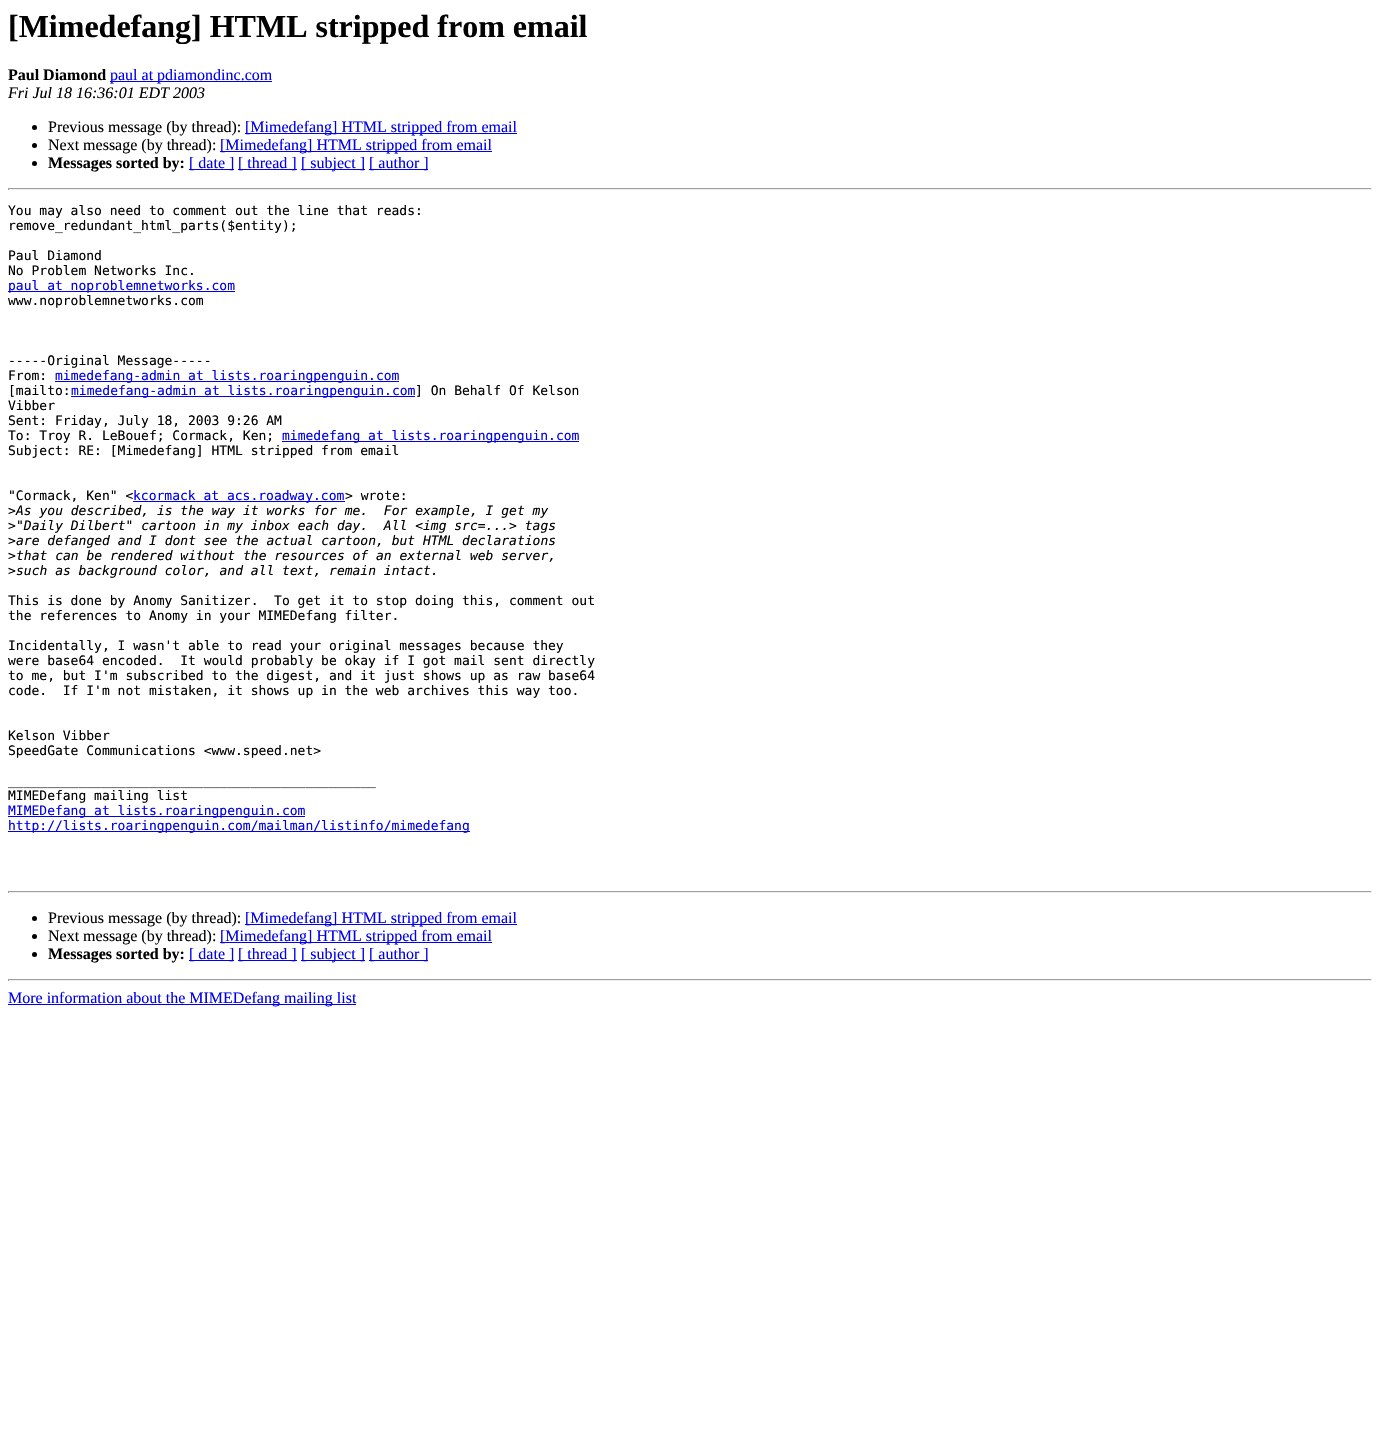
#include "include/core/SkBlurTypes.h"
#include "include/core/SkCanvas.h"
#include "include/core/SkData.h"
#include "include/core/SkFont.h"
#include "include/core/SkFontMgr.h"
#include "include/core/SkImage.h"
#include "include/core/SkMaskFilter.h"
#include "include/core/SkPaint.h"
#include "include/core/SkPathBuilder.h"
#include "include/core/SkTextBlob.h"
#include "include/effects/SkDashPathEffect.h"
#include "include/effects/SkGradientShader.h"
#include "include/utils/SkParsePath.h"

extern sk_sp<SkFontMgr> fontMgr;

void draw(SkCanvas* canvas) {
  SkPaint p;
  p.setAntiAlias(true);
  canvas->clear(SK_ColorWHITE);
  p.setColor(SkColorSetRGB(0, 0, 238));
  canvas->drawRect(SkRect::MakeLTRB(110, 81, 272, 82), p);
  p.setColor(SK_ColorBLACK);
  canvas->drawCircle(34.5f, 127.5f, 2.5f, p);
  p.setColor(SkColorSetRGB(0, 0, 238));
  canvas->drawRect(SkRect::MakeLTRB(245, 133, 517, 134), p);
  p.setColor(SK_ColorBLACK);
  canvas->drawCircle(34.5f, 145.5f, 2.5f, p);
  p.setColor(SkColorSetRGB(0, 0, 238));
  canvas->drawRect(SkRect::MakeLTRB(220, 151, 492, 152), p);
  p.setColor(SK_ColorBLACK);
  canvas->drawCircle(34.5f, 163.5f, 2.5f, p);
  p.setColor(SkColorSetRGB(0, 0, 238));
  canvas->drawRect(SkRect::MakeLTRB(189, 169, 234, 170), p);
  canvas->drawRect(SkRect::MakeLTRB(238, 169, 297, 170), p);
  canvas->drawRect(SkRect::MakeLTRB(301, 169, 365, 170), p);
  canvas->drawRect(SkRect::MakeLTRB(369, 169, 428, 170), p);
  p.setColor(SkColorSetRGB(159, 159, 159));
  canvas->drawRect(SkRect::MakeLTRB(8, 188, 1372, 189), p);
  p.setColor(SkColorSetRGB(238, 238, 238));
  canvas->drawRect(SkRect::MakeLTRB(1371, 188, 1372, 190), p);
  canvas->drawRect(SkRect::MakeLTRB(8, 189, 1372, 190), p);
  p.setColor(SkColorSetRGB(159, 159, 159));
  canvas->drawRect(SkRect::MakeLTRB(8, 188, 9, 190), p);
  p.setColor(SkColorSetRGB(0, 0, 238));
  canvas->drawRect(SkRect::MakeLTRB(8, 291, 235, 292), p);
  canvas->drawRect(SkRect::MakeLTRB(55, 381, 399, 382), p);
  canvas->drawRect(SkRect::MakeLTRB(71, 396, 415, 397), p);
  canvas->drawRect(SkRect::MakeLTRB(282, 441, 579, 442), p);
  canvas->drawRect(SkRect::MakeLTRB(133, 501, 345, 502), p);
  canvas->drawRect(SkRect::MakeLTRB(8, 816, 305, 817), p);
  canvas->drawRect(SkRect::MakeLTRB(8, 831, 470, 832), p);
  p.setColor(SkColorSetRGB(159, 159, 159));
  canvas->drawRect(SkRect::MakeLTRB(8, 891, 1372, 892), p);
  p.setColor(SkColorSetRGB(238, 238, 238));
  canvas->drawRect(SkRect::MakeLTRB(1371, 891, 1372, 893), p);
  canvas->drawRect(SkRect::MakeLTRB(8, 892, 1372, 893), p);
  p.setColor(SkColorSetRGB(159, 159, 159));
  canvas->drawRect(SkRect::MakeLTRB(8, 891, 9, 893), p);
  p.setColor(SK_ColorBLACK);
  canvas->drawCircle(34.5f, 918.5f, 2.5f, p);
  p.setColor(SkColorSetRGB(0, 0, 238));
  canvas->drawRect(SkRect::MakeLTRB(245, 924, 517, 925), p);
  p.setColor(SK_ColorBLACK);
  canvas->drawCircle(34.5f, 936.5f, 2.5f, p);
  p.setColor(SkColorSetRGB(0, 0, 238));
  canvas->drawRect(SkRect::MakeLTRB(220, 942, 492, 943), p);
  p.setColor(SK_ColorBLACK);
  canvas->drawCircle(34.5f, 954.5f, 2.5f, p);
  p.setColor(SkColorSetRGB(0, 0, 238));
  canvas->drawRect(SkRect::MakeLTRB(189, 960, 234, 961), p);
  canvas->drawRect(SkRect::MakeLTRB(238, 960, 297, 961), p);
  canvas->drawRect(SkRect::MakeLTRB(301, 960, 365, 961), p);
  canvas->drawRect(SkRect::MakeLTRB(369, 960, 428, 961), p);
  p.setColor(SkColorSetRGB(159, 159, 159));
  canvas->drawRect(SkRect::MakeLTRB(8, 979, 1372, 980), p);
  p.setColor(SkColorSetRGB(238, 238, 238));
  canvas->drawRect(SkRect::MakeLTRB(1371, 979, 1372, 981), p);
  canvas->drawRect(SkRect::MakeLTRB(8, 980, 1372, 981), p);
  p.setColor(SkColorSetRGB(159, 159, 159));
  canvas->drawRect(SkRect::MakeLTRB(8, 979, 9, 981), p);
  p.setColor(SkColorSetRGB(0, 0, 238));
  canvas->drawRect(SkRect::MakeLTRB(8, 1004, 356, 1005), p);
  SkFont font1(fontMgr->matchFamilyStyle("Liberation Serif", SkFontStyle::Bold()), 32);
  font1.setSubpixel(true);
  p.setColor(SK_ColorBLACK);
  canvas->drawString("[Mimedefang] HTML stripped from email", 8, 37, font1, p);
  SkFont font2(fontMgr->matchFamilyStyle("Liberation Serif", SkFontStyle::Bold()), 16);
  font2.setSubpixel(true);
  canvas->drawString("Paul Diamond", 8, 80, font2, p);
  SkFont font3(fontMgr->matchFamilyStyle("Liberation Serif", SkFontStyle::Normal()), 16);
  font3.setSubpixel(true);
  p.setColor(SkColorSetRGB(0, 0, 238));
  canvas->drawString("paul at pdiamondinc.com", 110, 80, font3, p);
  SkFont font4(fontMgr->matchFamilyStyle("Liberation Serif", SkFontStyle::Italic()), 16);
  font4.setSubpixel(true);
  p.setColor(SK_ColorBLACK);
  canvas->drawString("Fri Jul 18 16:36:01 EDT 2003", 8, 98, font4, p);
  canvas->drawString("Previous message (by thread):", 48, 132, font3, p);
  p.setColor(SkColorSetRGB(0, 0, 238));
  canvas->drawString("[Mimedefang] HTML stripped from email", 245, 132, font3, p);
  p.setColor(SK_ColorBLACK);
  canvas->drawString("Next message (by thread):", 48, 150, font3, p);
  p.setColor(SkColorSetRGB(0, 0, 238));
  canvas->drawString("[Mimedefang] HTML stripped from email", 220, 150, font3, p);
  p.setColor(SK_ColorBLACK);
  canvas->drawString("Messages sorted by:", 48, 168, font2, p);
  p.setColor(SkColorSetRGB(0, 0, 238));
  canvas->drawString("[ date ]", 189, 168, font3, p);
  canvas->drawString("[ thread ]", 238, 168, font3, p);
  canvas->drawString("[ subject ]", 301, 168, font3, p);
  canvas->drawString("[ author ]", 369, 168, font3, p);
  SkFont font5(fontMgr->matchFamilyStyle("DejaVu Sans Mono", SkFontStyle::Normal()), 13);
  font5.setSubpixel(true);
  p.setColor(SK_ColorBLACK);
  canvas->drawString("You may also need to comment out the line that reads:", 8, 215, font5, p);
  canvas->drawString("remove_redundant_html_parts($entity);", 8, 230, font5, p);
  canvas->drawString("Paul Diamond", 8, 260, font5, p);
  canvas->drawString("No Problem Networks Inc.", 8, 275, font5, p);
  p.setColor(SkColorSetRGB(0, 0, 238));
  canvas->drawString("paul at noproblemnetworks.com", 8, 290, font5, p);
  p.setColor(SK_ColorBLACK);
  canvas->drawString("www.noproblemnetworks.com", 8, 305, font5, p);
  canvas->drawString("-----Original Message-----", 8, 365, font5, p);
  canvas->drawString("From:", 8, 380, font5, p);
  p.setColor(SkColorSetRGB(0, 0, 238));
  canvas->drawString("mimedefang-admin at lists.roaringpenguin.com", 55, 380, font5, p);
  p.setColor(SK_ColorBLACK);
  canvas->drawString("[mailto:", 8, 395, font5, p);
  p.setColor(SkColorSetRGB(0, 0, 238));
  canvas->drawString("mimedefang-admin at lists.roaringpenguin.com", 71, 395, font5, p);
  p.setColor(SK_ColorBLACK);
  canvas->drawString("] On Behalf Of Kelson", 415, 395, font5, p);
  canvas->drawString("Vibber", 8, 410, font5, p);
  canvas->drawString("Sent: Friday, July 18, 2003 9:26 AM", 8, 425, font5, p);
  canvas->drawString("To: Troy R. LeBouef; Cormack, Ken;", 8, 440, font5, p);
  p.setColor(SkColorSetRGB(0, 0, 238));
  canvas->drawString("mimedefang at lists.roaringpenguin.com", 282, 440, font5, p);
  p.setColor(SK_ColorBLACK);
  canvas->drawString("Subject: RE: [Mimedefang] HTML stripped from email", 8, 455, font5, p);
  canvas->drawString("\"Cormack, Ken\" <", 8, 500, font5, p);
  p.setColor(SkColorSetRGB(0, 0, 238));
  canvas->drawString("kcormack at acs.roadway.com", 133, 500, font5, p);
  p.setColor(SK_ColorBLACK);
  canvas->drawString("> wrote:", 345, 500, font5, p);
  canvas->drawString(">", 8, 515, font5, p);
  SkFont font6(fontMgr->matchFamilyStyle("DejaVu Sans Mono", SkFontStyle::Italic()), 13);
  font6.setSubpixel(true);
  canvas->drawString("As you described, is the way it works for me.  For example, I get my", 16, 515, font6, p);
  canvas->drawString(">", 8, 530, font5, p);
  canvas->drawString("\"Daily Dilbert\" cartoon in my inbox each day.  All <img src=...> tags", 16, 530, font6, p);
  canvas->drawString(">", 8, 545, font5, p);
  canvas->drawString("are defanged and I dont see the actual cartoon, but HTML declarations", 16, 545, font6, p);
  canvas->drawString(">", 8, 560, font5, p);
  canvas->drawString("that can be rendered without the resources of an external web server,", 16, 560, font6, p);
  canvas->drawString(">", 8, 575, font5, p);
  canvas->drawString("such as background color, and all text, remain intact.", 16, 575, font6, p);
  canvas->drawString("This is done by Anomy Sanitizer.  To get it to stop doing this, comment out", 8, 605, font5, p);
  canvas->drawString("the references to Anomy in your MIMEDefang filter.", 8, 620, font5, p);
  canvas->drawString("Incidentally, I wasn't able to read your original messages because they", 8, 650, font5, p);
  canvas->drawString("were base64 encoded.  It would probably be okay if I got mail sent directly", 8, 665, font5, p);
  canvas->drawString("to me, but I'm subscribed to the digest, and it just shows up as raw base64", 8, 680, font5, p);
  canvas->drawString("code.  If I'm not mistaken, it shows up in the web archives this way too.", 8, 695, font5, p);
  canvas->drawString("Kelson Vibber", 8, 740, font5, p);
  canvas->drawString("SpeedGate Communications <www.speed.net>", 8, 755, font5, p);
  canvas->drawString("_______________________________________________", 8, 785, font5, p);
  canvas->drawString("MIMEDefang mailing list", 8, 800, font5, p);
  p.setColor(SkColorSetRGB(0, 0, 238));
  canvas->drawString("MIMEDefang at lists.roaringpenguin.com", 8, 815, font5, p);
  canvas->drawString("http://lists.roaringpenguin.com/mailman/listinfo/mimedefang", 8, 830, font5, p);
  p.setColor(SK_ColorBLACK);
  canvas->drawString("Previous message (by thread):", 48, 923, font3, p);
  p.setColor(SkColorSetRGB(0, 0, 238));
  canvas->drawString("[Mimedefang] HTML stripped from email", 245, 923, font3, p);
  p.setColor(SK_ColorBLACK);
  canvas->drawString("Next message (by thread):", 48, 941, font3, p);
  p.setColor(SkColorSetRGB(0, 0, 238));
  canvas->drawString("[Mimedefang] HTML stripped from email", 220, 941, font3, p);
  p.setColor(SK_ColorBLACK);
  canvas->drawString("Messages sorted by:", 48, 959, font2, p);
  p.setColor(SkColorSetRGB(0, 0, 238));
  canvas->drawString("[ date ]", 189, 959, font3, p);
  canvas->drawString("[ thread ]", 238, 959, font3, p);
  canvas->drawString("[ subject ]", 301, 959, font3, p);
  canvas->drawString("[ author ]", 369, 959, font3, p);
  canvas->drawString("More information about the MIMEDefang mailing list", 8, 1003, font3, p);
}
